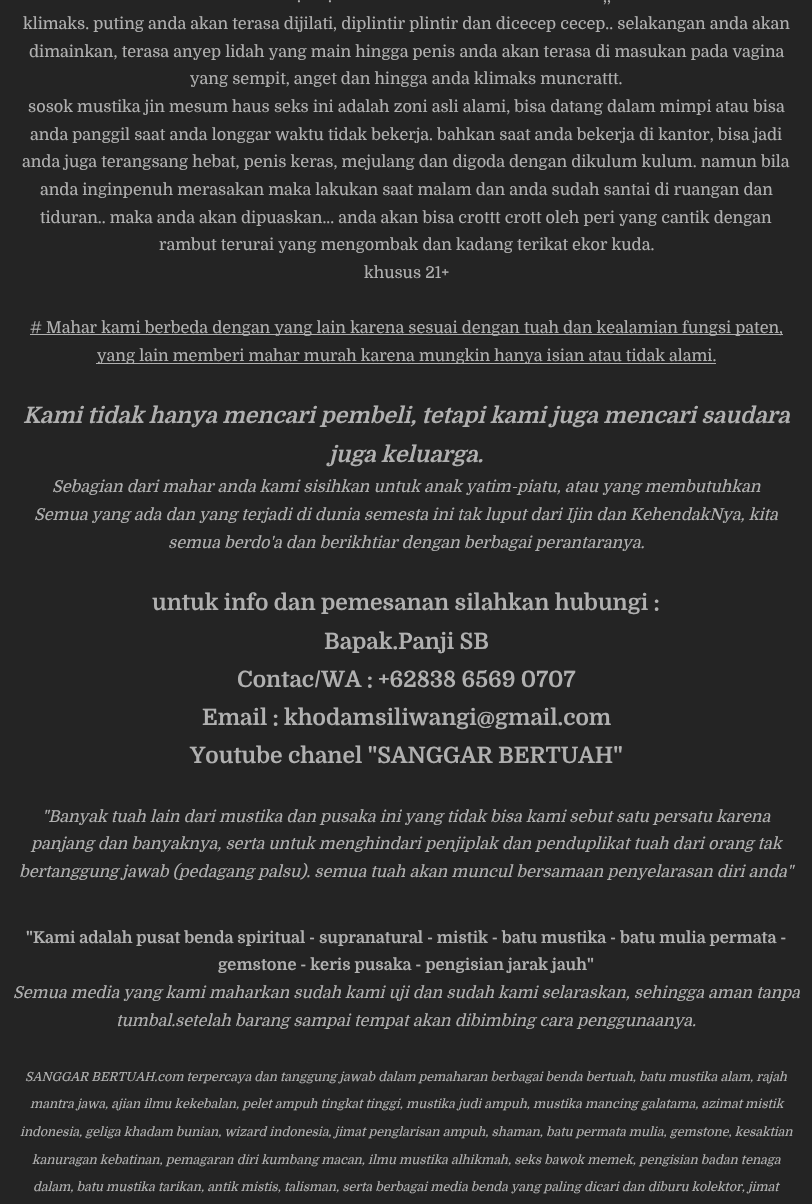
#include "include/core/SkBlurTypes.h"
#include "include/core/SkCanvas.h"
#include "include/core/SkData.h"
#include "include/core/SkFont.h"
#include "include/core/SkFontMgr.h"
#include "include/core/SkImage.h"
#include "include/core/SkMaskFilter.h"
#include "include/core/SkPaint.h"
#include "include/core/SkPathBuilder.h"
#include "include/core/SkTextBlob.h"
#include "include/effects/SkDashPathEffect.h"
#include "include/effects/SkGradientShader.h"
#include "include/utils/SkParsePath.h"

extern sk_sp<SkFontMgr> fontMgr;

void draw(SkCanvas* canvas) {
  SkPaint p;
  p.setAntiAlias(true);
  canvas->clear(SkColorSetRGB(36, 36, 36));
  p.setColor(SkColorSetRGB(176, 176, 176));
  canvas->drawRect(SkRect::MakeLTRB(30, 334, 783, 335), p);
  canvas->drawRect(SkRect::MakeLTRB(96, 363, 716, 364), p);
  SkFont font1(fontMgr->matchFamilyStyle("Domine", SkFontStyle::Normal()), 16.25f);
  font1.setSubpixel(true);
  canvas->drawString(".", 297, 2, font1, p);
  canvas->drawString(".", 328, 2, font1, p);
  canvas->drawString(",,", 603, 2, font1, p);
  canvas->drawString("klimaks. puting anda akan terasa dijilati, diplintir plintir dan dicecep cecep.. selakangan anda akan", 23, 29, font1, p);
  canvas->drawString("dimainkan, terasa anyep lidah yang main hingga penis anda akan terasa di masukan pada vagina", 29, 57, font1, p);
  canvas->drawString("yang sempit, anget dan hingga anda klimaks muncrattt.", 190, 84, font1, p);
  canvas->drawString("sosok mustika jin mesum haus seks ini adalah zoni asli alami, bisa datang dalam mimpi atau bisa", 28, 112, font1, p);
  canvas->drawString("anda panggil saat anda longgar waktu tidak bekerja. bahkan saat anda bekerja di kantor, bisa jadi", 30, 140, font1, p);
  canvas->drawString("anda juga terangsang hebat, penis keras, mejulang dan digoda dengan dikulum kulum. namun bila", 22, 167, font1, p);
  canvas->drawString("anda inginpenuh merasakan maka lakukan saat malam dan anda sudah santai di ruangan dan", 40, 195, font1, p);
  canvas->drawString("tiduran.. maka anda akan dipuaskan... anda akan bisa crottt crott oleh peri yang cantik dengan", 40, 223, font1, p);
  canvas->drawString("rambut terurai yang mengombak dan kadang terikat ekor kuda.", 159, 250, font1, p);
  canvas->drawString("khusus 21+", 364, 278, font1, p);
  canvas->drawString("# Mahar kami berbeda dengan yang lain karena sesuai dengan tuah dan kealamian fungsi paten,", 30, 333, font1, p);
  canvas->drawString("yang lain memberi mahar murah karena mungkin hanya isian atau tidak alami.", 97, 361, font1, p);
  SkFont font2(fontMgr->matchFamilyStyle("Domine", SkFontStyle::BoldItalic()), 22.5f);
  font2.setSubpixel(true);
  canvas->drawString("Kami tidak hanya mencari pembeli, tetapi kami juga mencari saudara", 23, 423, font2, p);
  canvas->drawString("juga keluarga.", 329, 462, font2, p);
  SkFont font3(fontMgr->matchFamilyStyle("Domine", SkFontStyle::Italic()), 16.25f);
  font3.setSubpixel(true);
  canvas->drawString("Sebagian dari mahar anda kami sisihkan untuk anak yatim-piatu, atau yang membutuhkan", 52, 492, font3, p);
  canvas->drawString("Semua yang ada dan yang terjadi di dunia semesta ini tak luput dari Ijin dan KehendakNya, kita", 34, 520, font3, p);
  canvas->drawString("semua berdo'a dan berikhtiar dengan berbagai perantaranya.", 168, 548, font3, p);
  SkFont font4(fontMgr->matchFamilyStyle("Domine", SkFontStyle::Bold()), 22.5f);
  font4.setSubpixel(true);
  canvas->drawString("untuk info dan pemesanan silahkan hubungi :", 152, 610, font4, p);
  canvas->drawString("Bapak.Panji SB", 324, 649, font4, p);
  canvas->drawString("Contac/WA : +62838 6569 0707", 237, 687, font4, p);
  canvas->drawString("Email : khodamsiliwangi@gmail.com", 202, 725, font4, p);
  canvas->drawString("Youtube chanel \"SANGGAR BERTUAH\"", 190, 763, font4, p);
  canvas->drawString("\"Banyak tuah lain dari mustika dan pusaka ini yang tidak bisa kami sebut satu persatu karena", 42, 822, font3, p);
  canvas->drawString("panjang dan banyaknya, serta untuk menghindari penjiplak dan penduplikat tuah dari orang tak", 31, 849, font3, p);
  canvas->drawString("bertanggung jawab (pedagang palsu). semua tuah akan muncul bersamaan penyelarasan diri anda\"", 19, 877, font3, p);
  SkFont font5(fontMgr->matchFamilyStyle("Domine", SkFontStyle::Bold()), 16.25f);
  font5.setSubpixel(true);
  canvas->drawString("\"Kami adalah pusat benda spiritual - supranatural - mistik - batu mustika - batu mulia permata -", 26, 943, font5, p);
  canvas->drawString("gemstone - keris pusaka - pengisian jarak jauh\"", 218, 970, font5, p);
  canvas->drawString("Semua media yang kami maharkan sudah kami uji dan sudah kami selaraskan, sehingga aman tanpa", 13, 998, font3, p);
  canvas->drawString("tumbal.setelah barang sampai tempat akan dibimbing cara penggunaanya.", 116, 1026, font3, p);
  SkFont font6(fontMgr->matchFamilyStyle("Domine", SkFontStyle::Italic()), 12.5f);
  font6.setSubpixel(true);
  canvas->drawString("SANGGAR BERTUAH.com terpercaya dan tanggung jawab dalam pemaharan berbagai benda bertuah, batu mustika alam, rajah", 25, 1081, font6, p);
  canvas->drawString("mantra jawa, ajian ilmu kekebalan, pelet ampuh tingkat tinggi, mustika judi ampuh, mustika mancing galatama, azimat mistik", 30, 1108, font6, p);
  canvas->drawString("indonesia, geliga khadam bunian, wizard indonesia, jimat penglarisan ampuh, shaman, batu permata mulia, gemstone, kesaktian", 20, 1136, font6, p);
  canvas->drawString("kanuragan kebatinan, pemagaran diri kumbang macan, ilmu mustika alhikmah, seks bawok memek, pengisian badan tenaga", 32, 1164, font6, p);
  canvas->drawString("dalam, batu mustika tarikan, antik mistis, talisman, serta berbagai media benda yang paling dicari dan diburu kolektor, jimat", 33, 1191, font6, p);
}
